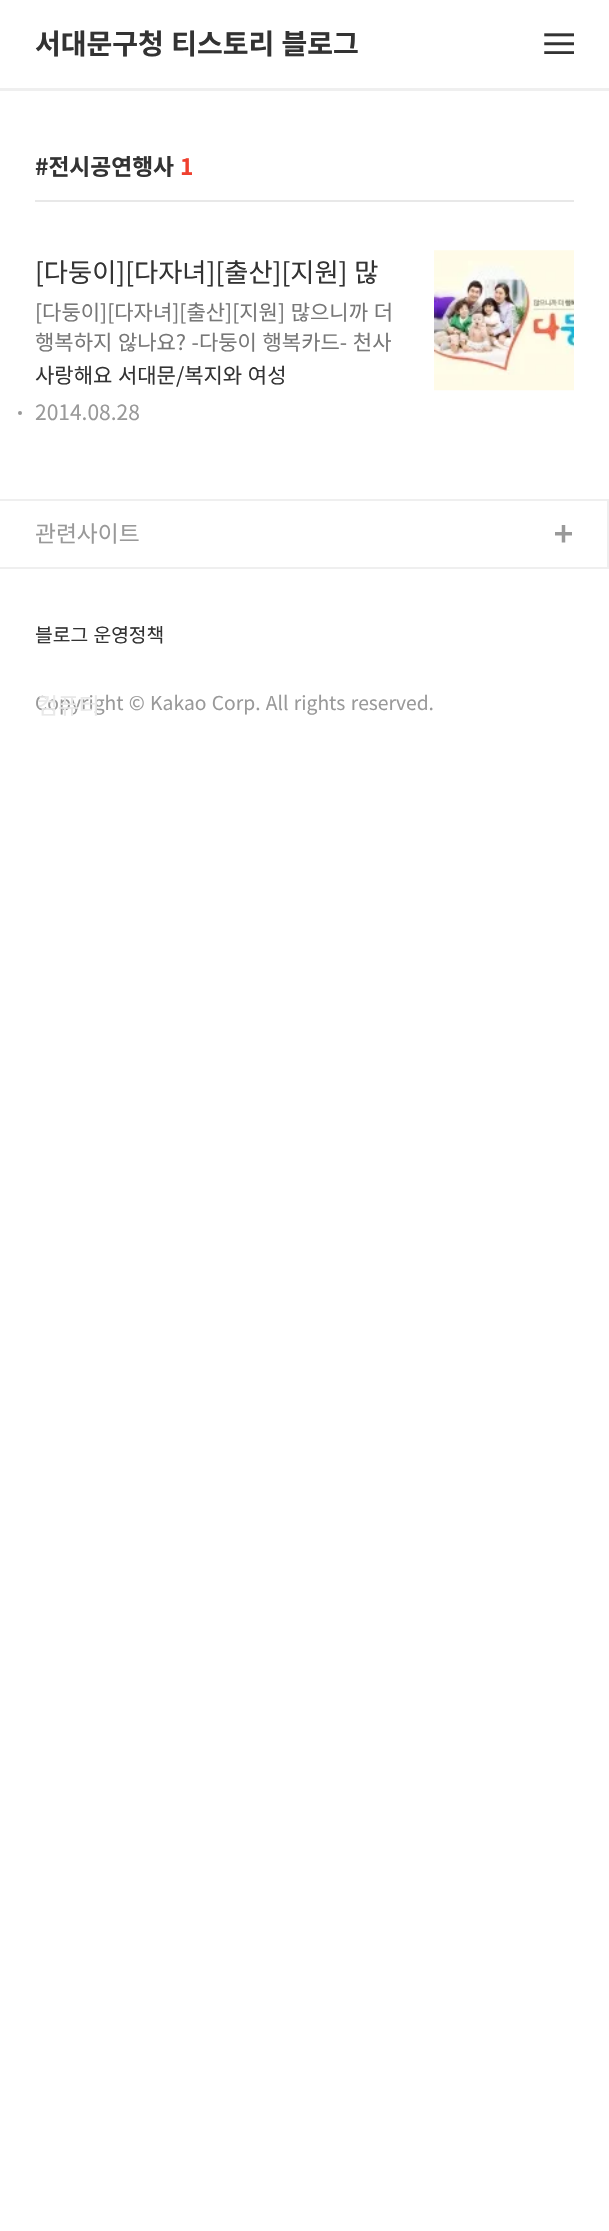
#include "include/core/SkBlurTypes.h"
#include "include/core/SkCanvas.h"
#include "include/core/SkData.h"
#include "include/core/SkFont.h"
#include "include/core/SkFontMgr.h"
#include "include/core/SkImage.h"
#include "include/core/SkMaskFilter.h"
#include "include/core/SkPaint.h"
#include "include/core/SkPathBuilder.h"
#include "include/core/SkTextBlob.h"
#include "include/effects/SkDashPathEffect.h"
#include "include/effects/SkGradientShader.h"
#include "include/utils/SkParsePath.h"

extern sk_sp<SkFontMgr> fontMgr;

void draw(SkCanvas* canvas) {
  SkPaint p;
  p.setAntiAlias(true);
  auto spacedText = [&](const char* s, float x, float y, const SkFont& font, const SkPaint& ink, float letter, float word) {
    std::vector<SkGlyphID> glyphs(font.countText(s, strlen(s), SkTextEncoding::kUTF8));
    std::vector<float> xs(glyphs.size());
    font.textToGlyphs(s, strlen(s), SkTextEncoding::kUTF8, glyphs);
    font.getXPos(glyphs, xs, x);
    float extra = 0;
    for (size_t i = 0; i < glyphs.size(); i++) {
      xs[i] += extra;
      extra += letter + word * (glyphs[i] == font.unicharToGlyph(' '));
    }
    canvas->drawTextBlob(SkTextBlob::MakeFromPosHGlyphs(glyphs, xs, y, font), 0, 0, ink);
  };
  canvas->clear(SK_ColorWHITE);
  p.setColor(SkColorSetRGB(239, 239, 239));
  canvas->drawRect(SkRect::MakeLTRB(0, 88, 609, 91), p);
  canvas->drawImageRect(SkImages::DeferredFromEncodedData(SkData::MakeFromFileName("images/1.png")), SkRect::MakeLTRB(544, 33, 574, 54), SkSamplingOptions());
  p.setColor(SkColorSetRGB(232, 232, 232));
  canvas->drawRect(SkRect::MakeLTRB(35, 200, 574, 202), p);
  p.setColor(SkColorSetRGB(153, 153, 153));
  canvas->drawCircle(20, 413, 2, p);
  canvas->drawImageRect(SkImages::DeferredFromEncodedData(SkData::MakeFromFileName("images/2.png")), SkRect::MakeLTRB(434, 250, 574, 391), SkSamplingOptions());
  p.setColor(SkColorSetRGB(239, 239, 239));
  canvas->drawRect(SkRect::MakeLTRB(0, 499, 609, 501), p);
  canvas->drawImageRect(SkImages::DeferredFromEncodedData(SkData::MakeFromFileName("images/3.png")), SkRect::MakeLTRB(555, 525, 572, 543), SkSamplingOptions());
  canvas->drawRect(SkRect::MakeLTRB(607, 499, 609, 569), p);
  canvas->drawRect(SkRect::MakeLTRB(0, 567, 609, 569), p);
  SkFont font1(fontMgr->matchFamilyStyle("Noto Sans KR", SkFontStyle::Bold()), 28);
  font1.setSubpixel(true);
  p.setColor(SkColorSetRGB(51, 51, 51));
  spacedText("서대문구청 티스토리 블로그", 35, 54, font1, p, 0, 1);
  SkFont font2(fontMgr->matchFamilyStyle("Noto Sans KR", SkFontStyle::Bold()), 22.75f);
  font2.setSubpixel(true);
  canvas->drawString("#전시공연행사", 35, 175, font2, p);
  p.setColor(SkColorSetRGB(239, 64, 47));
  canvas->drawString("1", 180, 175, font2, p);
  SkFont font3(fontMgr->matchFamilyStyle("Noto Sans KR", SkFontStyle::Normal()), 26.25f);
  font3.setSubpixel(true);
  p.setColor(SkColorSetRGB(51, 51, 51));
  spacedText("[다둥이][다자녀][출산][지원] 많", 35, 282, font3, p, 0, 1);
  SkFont font4(fontMgr->matchFamilyStyle("Noto Sans KR", SkFontStyle::Normal()), 21);
  font4.setSubpixel(true);
  p.setColor(SkColorSetRGB(119, 119, 119));
  spacedText("[다둥이][다자녀][출산][지원] 많으니까 더", 35, 320, font4, p, 0, 1);
  spacedText("행복하지 않나요? -다둥이 행복카드- 천사", 35, 350, font4, p, 0, 1);
  p.setColor(SkColorSetRGB(51, 51, 51));
  spacedText("사랑해요 서대문/복지와 여성", 35, 383, font4, p, 0, 1);
  p.setColor(SkColorSetRGB(153, 153, 153));
  canvas->drawString("2014.08.28", 35, 420, font4, p);
  SkFont font5(fontMgr->matchFamilyStyle("Noto Sans KR", SkFontStyle::Normal()), 22.75f);
  font5.setSubpixel(true);
  canvas->drawString("관련사이트", 35, 542, font5, p);
  SkFont font6(fontMgr->matchFamilyStyle("Noto Sans KR", SkFontStyle::Normal()), 19.25f);
  font6.setSubpixel(true);
  p.setColor(SkColorSetRGB(51, 51, 51));
  spacedText("블로그 운영정책", 35, 642, font6, p, 0, 1);
  p.setColor(SkColorSetRGB(153, 153, 153));
  spacedText("Copyright © Kakao Corp. All rights reserved.", 35, 710, font6, p, 0, 1);
  p.setColor(SkColorSetRGB(233, 233, 233));
  canvas->drawString("컴퓨터", 37, 714, font5, p);
}
